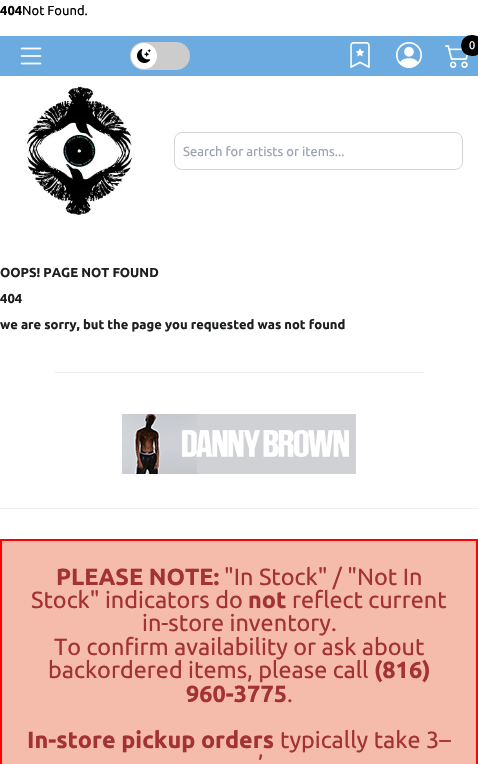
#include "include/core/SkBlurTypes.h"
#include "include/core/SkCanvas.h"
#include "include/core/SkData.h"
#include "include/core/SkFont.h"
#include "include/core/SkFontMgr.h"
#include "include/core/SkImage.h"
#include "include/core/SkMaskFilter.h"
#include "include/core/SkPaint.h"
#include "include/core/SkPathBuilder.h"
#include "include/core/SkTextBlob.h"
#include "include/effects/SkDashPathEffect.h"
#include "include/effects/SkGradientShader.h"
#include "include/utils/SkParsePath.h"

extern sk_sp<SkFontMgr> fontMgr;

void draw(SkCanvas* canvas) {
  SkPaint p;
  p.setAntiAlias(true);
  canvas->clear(SK_ColorWHITE);
  p.setColor(SkColorSetRGB(107, 171, 224));
  canvas->drawRect(SkRect::MakeLTRB(0, 36, 478, 76), p);
  canvas->drawImageRect(SkImages::DeferredFromEncodedData(SkData::MakeFromFileName("images/1.png")), SkRect::MakeLTRB(20, 47, 42, 65), SkSamplingOptions());
  p.setColor(SkColorSetRGB(204, 204, 204));
  canvas->drawRoundRect(SkRect::MakeLTRB(130, 42, 190, 70), 14, 14, p);
  p.setColor(SK_ColorWHITE);
  canvas->drawCircle(144, 56, 13, p);
  canvas->drawImageRect(SkImages::DeferredFromEncodedData(SkData::MakeFromFileName("images/2.png")), SkRect::MakeLTRB(137, 49, 151, 63), SkSamplingOptions());
  canvas->drawImageRect(SkImages::DeferredFromEncodedData(SkData::MakeFromFileName("images/3.png")), SkRect::MakeLTRB(350, 42, 370, 68), SkSamplingOptions());
  canvas->drawImageRect(SkImages::DeferredFromEncodedData(SkData::MakeFromFileName("images/4.png")), SkRect::MakeLTRB(396, 42, 422, 68), SkSamplingOptions());
  canvas->drawImageRect(SkImages::DeferredFromEncodedData(SkData::MakeFromFileName("images/5.png")), SkRect::MakeLTRB(445, 45, 468, 68), SkSamplingOptions());
  p.setColor(SK_ColorBLACK);
  canvas->drawRoundRect(SkRect::MakeLTRB(461, 35, 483, 56), 10.5f, 10.5f, p);
  canvas->drawImageRect(SkImages::DeferredFromEncodedData(SkData::MakeFromFileName("images/6.png")), SkRect::MakeLTRB(25, 86, 133, 215), SkSamplingOptions());
  p.setStyle(SkPaint::kStroke_Style);
  p.setStrokeWidth(1);
  p.setColor(SkColorSetRGB(209, 213, 219));
  canvas->drawRoundRect(SkRect::MakeLTRB(174.5f, 132.5f, 462.5f, 169.5f), 7.5f, 7.5f, p);
  p.setStyle(SkPaint::kFill_Style);
  p.setColor(SkColorSetRGB(241, 241, 241));
  canvas->drawRect(SkRect::MakeLTRB(54, 372, 424, 373), p);
  canvas->drawImageRect(SkImages::DeferredFromEncodedData(SkData::MakeFromFileName("images/7.png")), SkRect::MakeLTRB(122, 414, 356, 474), SkSamplingOptions());
  canvas->drawRect(SkRect::MakeLTRB(0, 508, 478, 509), p);
  p.setColor(SkColorSetRGB(245, 187, 171));
  canvas->drawRect(SkRect::MakeLTRB(1, 540, 477, 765), p);
  p.setStyle(SkPaint::kStroke_Style);
  p.setStrokeWidth(2);
  p.setColor(SkColorSetRGB(255, 0, 0));
  canvas->drawRect(SkRect::MakeLTRB(1, 540, 477, 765), p);
  SkFont font1(fontMgr->matchFamilyStyle("Ubuntu", SkFontStyle::Bold()), 13);
  font1.setSubpixel(true);
  p.setStyle(SkPaint::kFill_Style);
  p.setColor(SK_ColorBLACK);
  canvas->drawString("404", 0, 15, font1, p);
  SkFont font2(fontMgr->matchFamilyStyle("Ubuntu", SkFontStyle::Normal()), 13);
  font2.setSubpixel(true);
  canvas->drawString("Not Found.", 22, 15, font2, p);
  SkFont font3(fontMgr->matchFamilyStyle("Ubuntu", SkFontStyle::Normal()), 11);
  font3.setSubpixel(true);
  p.setColor(SK_ColorWHITE);
  canvas->drawString("0", 469, 49, font3, p);
  p.setColor(SkColorSetRGB(156, 163, 175));
  canvas->drawString("Search for artists or items...", 183, 156, font2, p);
  p.setColor(SkColorSetRGB(29, 31, 32));
  canvas->drawString("OOPS! PAGE NOT FOUND", 0, 277, font1, p);
  canvas->drawString("404", 0, 303, font1, p);
  canvas->drawString("we are sorry, but the page you requested was not found", 0, 329, font1, p);
  SkFont font4(fontMgr->matchFamilyStyle("Ubuntu", SkFontStyle::Bold()), 23.4f);
  font4.setSubpixel(true);
  p.setColor(SkColorSetRGB(163, 51, 51));
  canvas->drawString("PLEASE NOTE:", 56, 585, font4, p);
  SkFont font5(fontMgr->matchFamilyStyle("Ubuntu", SkFontStyle::Normal()), 23.4f);
  font5.setSubpixel(true);
  canvas->drawString("\"In Stock\" / \"Not In", 224, 585, font5, p);
  canvas->drawString("Stock\" indicators do", 31, 608, font5, p);
  canvas->drawString("not", 248, 608, font4, p);
  canvas->drawString("reflect current", 292, 608, font5, p);
  canvas->drawString("in-store inventory.", 142, 631, font5, p);
  canvas->drawString("To confirm availability or ask about", 54, 655, font5, p);
  canvas->drawString("backordered items, please call", 48, 678, font5, p);
  canvas->drawString("(816)", 374, 678, font4, p);
  canvas->drawString("960-3775", 186, 702, font4, p);
  canvas->drawString(".", 287, 702, font5, p);
  canvas->drawString("In-store pickup orders", 27, 748, font4, p);
  canvas->drawString("typically take 3–", 280, 748, font5, p);
  canvas->drawString("’", 258, 772, font5, p);
}
